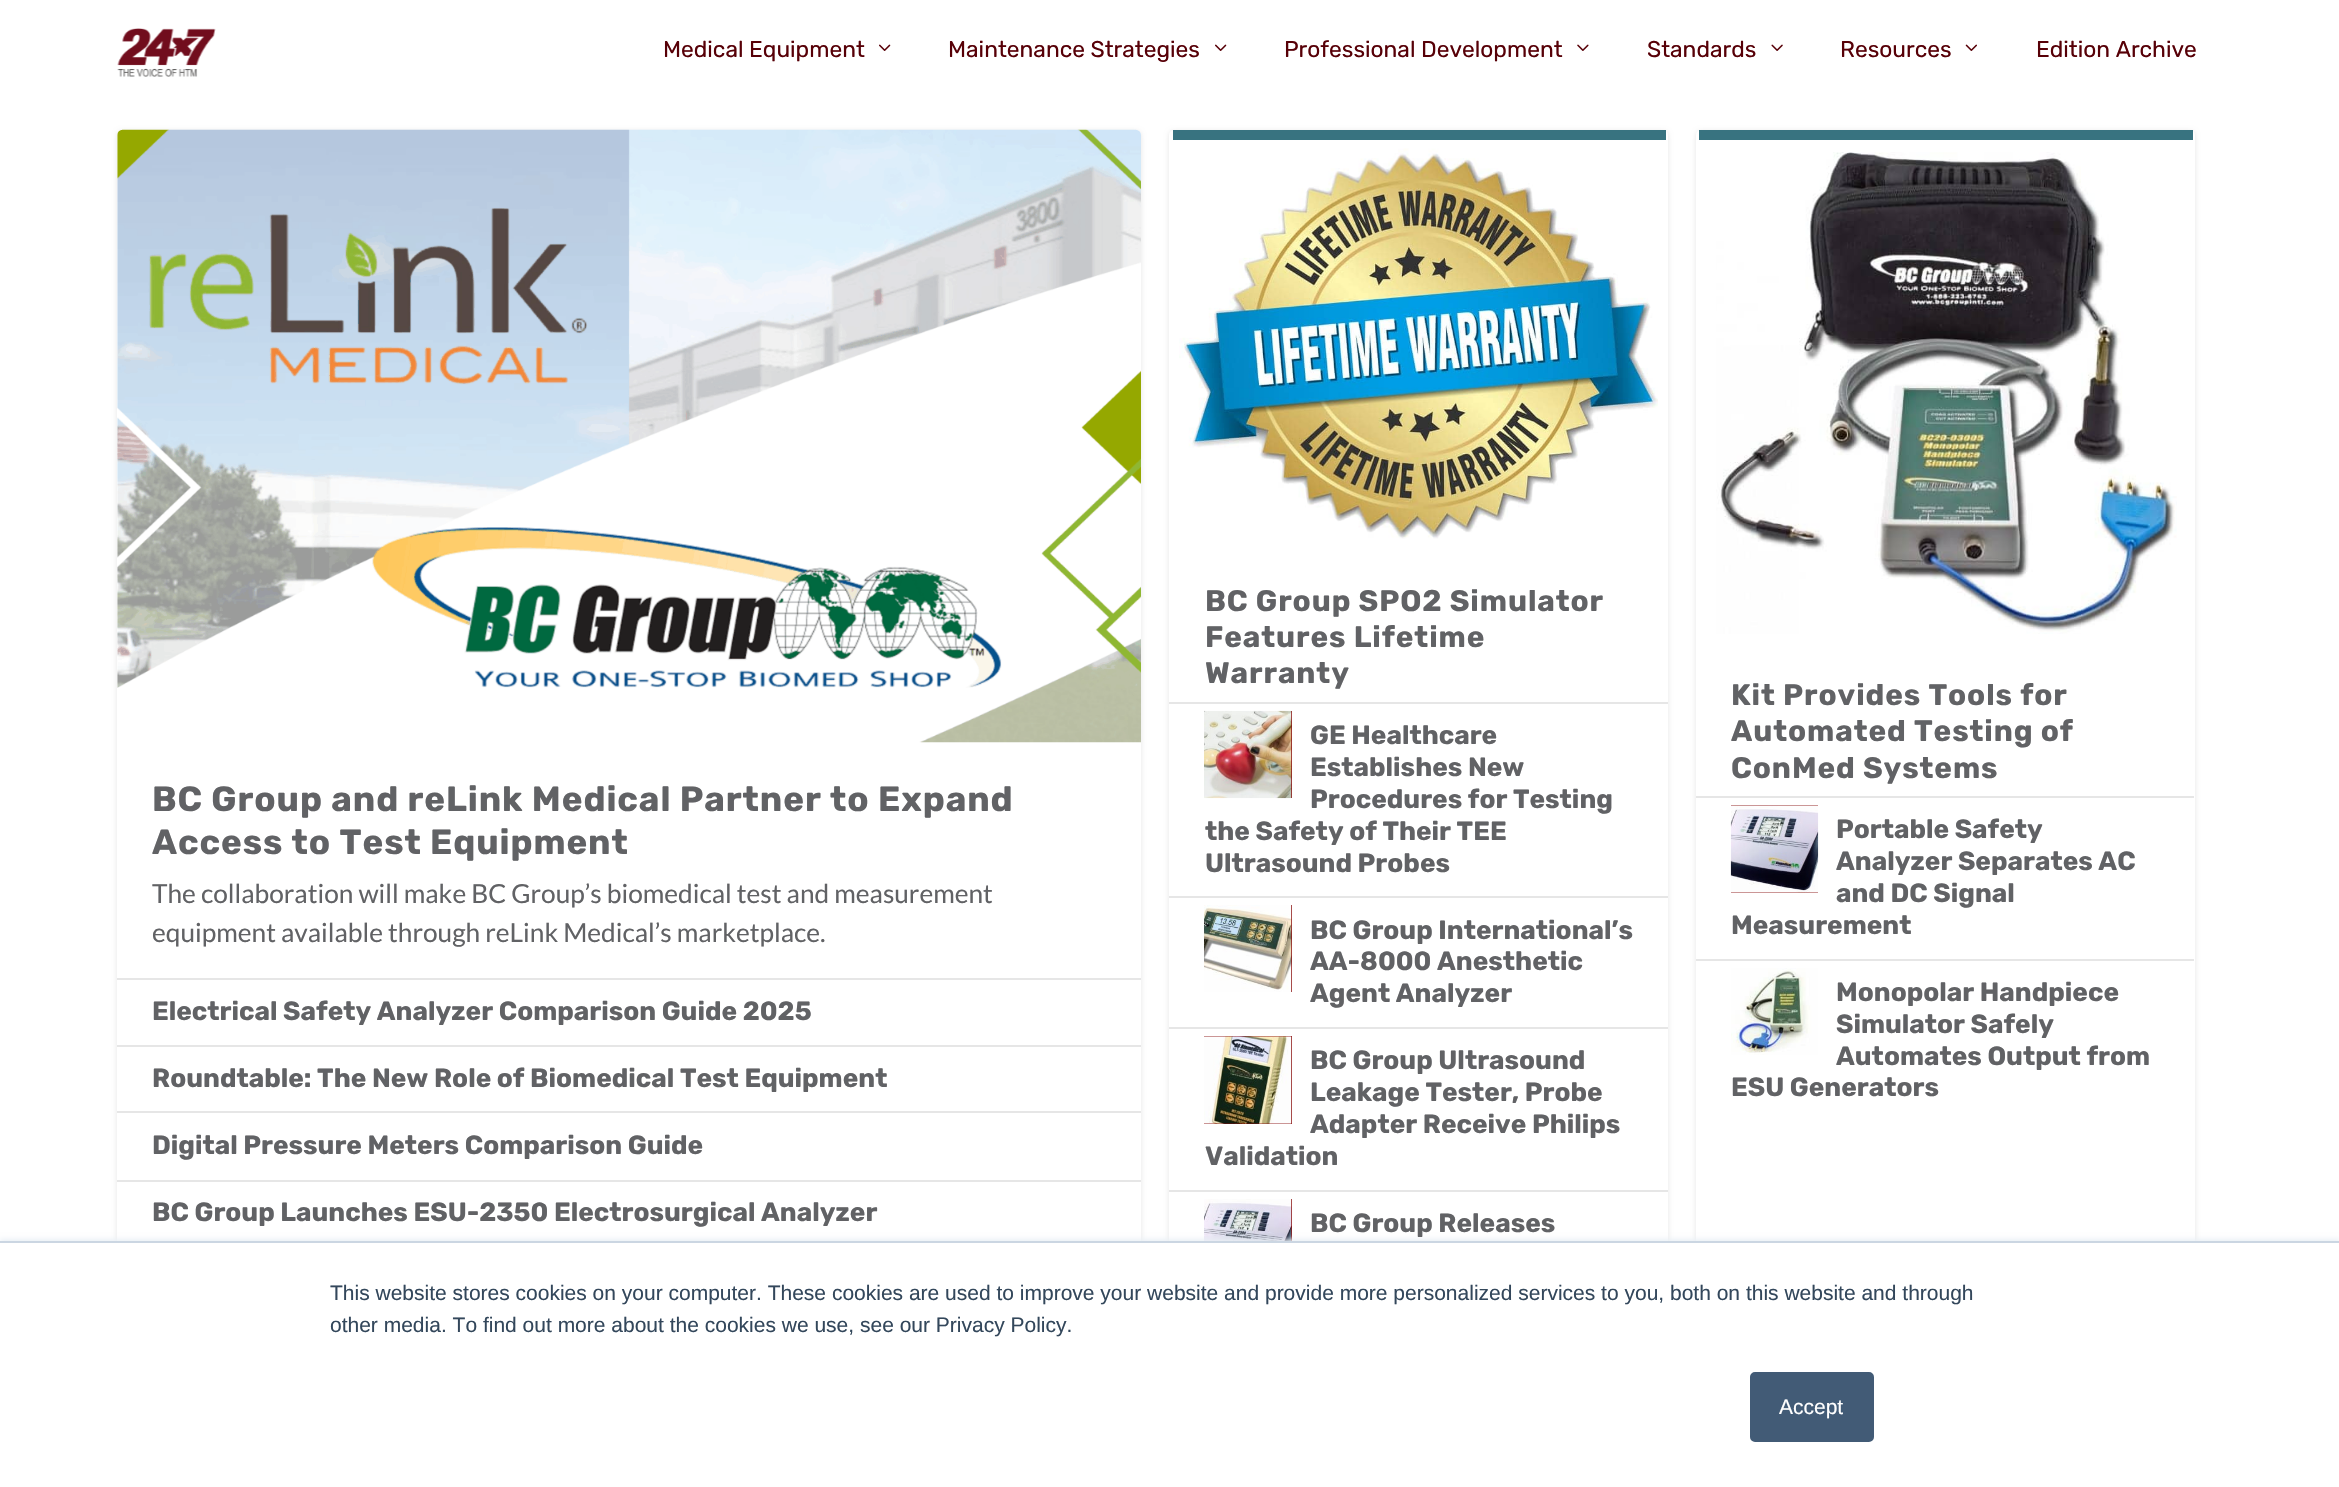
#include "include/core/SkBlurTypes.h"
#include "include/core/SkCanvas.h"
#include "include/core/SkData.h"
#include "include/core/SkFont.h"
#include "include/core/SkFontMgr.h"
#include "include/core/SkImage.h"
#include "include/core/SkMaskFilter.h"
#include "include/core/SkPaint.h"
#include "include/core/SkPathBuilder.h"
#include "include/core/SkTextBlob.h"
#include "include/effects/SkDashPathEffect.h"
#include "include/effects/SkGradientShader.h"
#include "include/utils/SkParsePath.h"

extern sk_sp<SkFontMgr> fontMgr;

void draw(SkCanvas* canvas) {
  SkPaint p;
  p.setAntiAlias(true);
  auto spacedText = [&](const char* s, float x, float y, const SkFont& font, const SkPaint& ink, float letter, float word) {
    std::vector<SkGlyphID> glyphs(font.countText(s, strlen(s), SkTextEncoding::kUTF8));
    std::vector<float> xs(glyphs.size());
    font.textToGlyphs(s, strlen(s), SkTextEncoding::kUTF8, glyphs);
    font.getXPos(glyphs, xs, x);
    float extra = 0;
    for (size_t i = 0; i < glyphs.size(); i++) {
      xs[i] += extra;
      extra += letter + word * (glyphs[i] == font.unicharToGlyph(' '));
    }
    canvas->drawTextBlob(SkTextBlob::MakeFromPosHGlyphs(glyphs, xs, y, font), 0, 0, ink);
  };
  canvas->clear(SK_ColorWHITE);
  canvas->drawImageRect(SkImages::DeferredFromEncodedData(SkData::MakeFromFileName("images/1.png")), SkRect::MakeLTRB(117, 28, 216, 77), SkSamplingOptions());
  canvas->drawImageRect(SkImages::DeferredFromEncodedData(SkData::MakeFromFileName("images/2.png")), SkRect::MakeLTRB(879, 44, 891, 51), SkSamplingOptions());
  canvas->drawImageRect(SkImages::DeferredFromEncodedData(SkData::MakeFromFileName("images/2.png")), SkRect::MakeLTRB(1215, 44, 1227, 51), SkSamplingOptions());
  canvas->drawImageRect(SkImages::DeferredFromEncodedData(SkData::MakeFromFileName("images/3.png")), SkRect::MakeLTRB(1577, 44, 1589, 51), SkSamplingOptions());
  canvas->drawImageRect(SkImages::DeferredFromEncodedData(SkData::MakeFromFileName("images/4.png")), SkRect::MakeLTRB(1771, 44, 1783, 51), SkSamplingOptions());
  canvas->drawImageRect(SkImages::DeferredFromEncodedData(SkData::MakeFromFileName("images/5.png")), SkRect::MakeLTRB(1965, 44, 1977, 51), SkSamplingOptions());
  p.setColor(SkColorSetARGB(26, 0, 0, 0));
  p.setMaskFilter(SkMaskFilter::MakeBlur(kNormal_SkBlurStyle, 2.5f));
  canvas->drawRoundRect(SkRect::MakeLTRB(117, 131, 1141, 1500), 5, 5, p);
  p.setMaskFilter(nullptr);
  p.setColor(SK_ColorWHITE);
  canvas->drawRoundRect(SkRect::MakeLTRB(117, 130, 1141, 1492), 5, 5, p);
  canvas->drawImageRect(SkImages::DeferredFromEncodedData(SkData::MakeFromFileName("images/6.png")), SkRect::MakeLTRB(117, 129, 1141, 743), SkSamplingOptions());
  p.setColor(SkColorSetRGB(230, 230, 230));
  canvas->drawRect(SkRect::MakeLTRB(117, 978, 1141, 980), p);
  canvas->drawRect(SkRect::MakeLTRB(117, 1045, 1141, 1047), p);
  canvas->drawRect(SkRect::MakeLTRB(117, 1111, 1141, 1113), p);
  canvas->drawRect(SkRect::MakeLTRB(117, 1180, 1141, 1182), p);
  p.setColor(SkColorSetARGB(26, 0, 0, 0));
  p.setMaskFilter(SkMaskFilter::MakeBlur(kNormal_SkBlurStyle, 2.5f));
  canvas->drawRoundRect(SkRect::MakeLTRB(1169, 131, 1668, 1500), 5, 5, p);
  p.setMaskFilter(nullptr);
  p.setColor(SK_ColorWHITE);
  canvas->drawRoundRect(SkRect::MakeLTRB(1169, 130, 1668, 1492), 5, 5, p);
  p.setColor(SkColorSetRGB(56, 115, 128));
  canvas->drawRect(SkRect::MakeLTRB(1173, 130, 1666, 140), p);
  canvas->drawImageRect(SkImages::DeferredFromEncodedData(SkData::MakeFromFileName("images/7.png")), SkRect::MakeLTRB(1179, 148, 1658, 539), SkSamplingOptions());
  p.setColor(SkColorSetRGB(230, 230, 230));
  canvas->drawRect(SkRect::MakeLTRB(1169, 702, 1668, 704), p);
  canvas->drawRect(SkRect::MakeLTRB(1169, 896, 1668, 898), p);
  p.setColor(SkColorSetRGB(138, 16, 14));
  canvas->drawRect(SkRect::MakeLTRB(1291, 711, 1292, 798), p);
  canvas->drawImageRect(SkImages::DeferredFromEncodedData(SkData::MakeFromFileName("images/8.png")), SkRect::MakeLTRB(1204, 710, 1292, 799), SkSamplingOptions());
  p.setColor(SkColorSetRGB(230, 230, 230));
  canvas->drawRect(SkRect::MakeLTRB(1169, 1027, 1668, 1029), p);
  p.setColor(SkColorSetRGB(138, 16, 14));
  canvas->drawRect(SkRect::MakeLTRB(1291, 905, 1292, 992), p);
  canvas->drawImageRect(SkImages::DeferredFromEncodedData(SkData::MakeFromFileName("images/9.png")), SkRect::MakeLTRB(1204, 905, 1292, 992), SkSamplingOptions());
  p.setColor(SkColorSetRGB(230, 230, 230));
  canvas->drawRect(SkRect::MakeLTRB(1169, 1190, 1668, 1192), p);
  p.setColor(SkColorSetRGB(138, 16, 14));
  canvas->drawRect(SkRect::MakeLTRB(1204, 1036, 1292, 1124), p);
  canvas->drawImageRect(SkImages::DeferredFromEncodedData(SkData::MakeFromFileName("images/10.png")), SkRect::MakeLTRB(1204, 1036, 1292, 1124), SkSamplingOptions());
  canvas->drawRect(SkRect::MakeLTRB(1291, 1199, 1292, 1241), p);
  canvas->drawImageRect(SkImages::DeferredFromEncodedData(SkData::MakeFromFileName("images/11.png")), SkRect::MakeLTRB(1204, 1199, 1292, 1241), SkSamplingOptions());
  p.setColor(SkColorSetARGB(26, 0, 0, 0));
  p.setMaskFilter(SkMaskFilter::MakeBlur(kNormal_SkBlurStyle, 2.5f));
  canvas->drawRoundRect(SkRect::MakeLTRB(1696, 131, 2195, 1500), 5, 5, p);
  p.setMaskFilter(nullptr);
  p.setColor(SK_ColorWHITE);
  canvas->drawRoundRect(SkRect::MakeLTRB(1696, 130, 2195, 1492), 5, 5, p);
  p.setColor(SkColorSetRGB(56, 115, 128));
  canvas->drawRect(SkRect::MakeLTRB(1699, 130, 2193, 140), p);
  canvas->drawImageRect(SkImages::DeferredFromEncodedData(SkData::MakeFromFileName("images/12.png")), SkRect::MakeLTRB(1716, 152, 2177, 634), SkSamplingOptions());
  p.setColor(SkColorSetRGB(230, 230, 230));
  canvas->drawRect(SkRect::MakeLTRB(1696, 796, 2194, 798), p);
  canvas->drawRect(SkRect::MakeLTRB(1696, 959, 2194, 961), p);
  p.setColor(SkColorSetRGB(138, 16, 14));
  canvas->drawRect(SkRect::MakeLTRB(1731, 805, 1818, 893), p);
  canvas->drawImageRect(SkImages::DeferredFromEncodedData(SkData::MakeFromFileName("images/13.png")), SkRect::MakeLTRB(1730, 805, 1819, 893), SkSamplingOptions());
  canvas->drawImageRect(SkImages::DeferredFromEncodedData(SkData::MakeFromFileName("images/14.png")), SkRect::MakeLTRB(1731, 968, 1818, 1055), SkSamplingOptions());
  p.setColor(SkColorSetRGB(234, 240, 246));
  p.setMaskFilter(SkMaskFilter::MakeBlur(kNormal_SkBlurStyle, 2.5f));
  canvas->drawRect(SkRect::MakeLTRB(0, 1239, 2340, 1486), p);
  p.setMaskFilter(nullptr);
  p.setColor(SK_ColorWHITE);
  canvas->drawRect(SkRect::MakeLTRB(0, 1243, 2339, 1487), p);
  p.setColor(SkColorSetRGB(203, 214, 226));
  canvas->drawRect(SkRect::MakeLTRB(0, 1241, 2339, 1243), p);
  p.setColor(SkColorSetRGB(66, 91, 118));
  canvas->drawRoundRect(SkRect::MakeLTRB(1751, 1373, 1873, 1441), 4, 4, p);
  p.setStyle(SkPaint::kStroke_Style);
  p.setStrokeWidth(2);
  canvas->drawRoundRect(SkRect::MakeLTRB(1751, 1373, 1873, 1441), 4, 4, p);
  SkFont font1(fontMgr->matchFamilyStyle("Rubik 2", SkFontStyle(300, SkFontStyle::kNormal_Width, SkFontStyle::kUpright_Slant)), 22.75f);
  font1.setSubpixel(true);
  p.setStyle(SkPaint::kFill_Style);
  p.setColor(SkColorSetRGB(87, 0, 7));
  canvas->drawString("Medical Equipment", 663, 57, font1, p);
  canvas->drawString("Maintenance Strategies", 948, 57, font1, p);
  canvas->drawString("Professional Development", 1284, 57, font1, p);
  canvas->drawString("Standards", 1647, 57, font1, p);
  canvas->drawString("Resources", 1840, 57, font1, p);
  canvas->drawString("Edition Archive", 2036, 57, font1, p);
  SkFont font2(fontMgr->matchFamilyStyle("Rubik", SkFontStyle(300, SkFontStyle::kNormal_Width, SkFontStyle::kUpright_Slant)), 35);
  font2.setSubpixel(true);
  p.setColor(SkColorSetRGB(97, 98, 101));
  spacedText("BC Group and reLink Medical Partner to Expand", 152, 811, font2, p, 0.9f, 0);
  spacedText("Access to Test Equipment", 152, 854, font2, p, 0.9f, 0);
  SkFont font3(fontMgr->matchFamilyStyle("Lato", SkFontStyle::Normal()), 26.25f);
  font3.setSubpixel(true);
  canvas->drawString("The collaboration will make BC Group’s biomedical test and measurement", 152, 903, font3, p);
  canvas->drawString("equipment available through reLink Medical’s marketplace.", 152, 942, font3, p);
  SkFont font4(fontMgr->matchFamilyStyle("Rubik", SkFontStyle(300, SkFontStyle::kNormal_Width, SkFontStyle::kUpright_Slant)), 26.25f);
  font4.setSubpixel(true);
  canvas->drawString("Electrical Safety Analyzer Comparison Guide 2025", 152, 1020, font4, p);
  canvas->drawString("Roundtable: The New Role of Biomedical Test Equipment", 152, 1087, font4, p);
  canvas->drawString("Digital Pressure Meters Comparison Guide", 152, 1154, font4, p);
  canvas->drawString("BC Group Launches ESU-2350 Electrosurgical Analyzer", 152, 1221, font4, p);
  SkFont font5(fontMgr->matchFamilyStyle("Rubik", SkFontStyle(300, SkFontStyle::kNormal_Width, SkFontStyle::kUpright_Slant)), 29.75f);
  font5.setSubpixel(true);
  spacedText("BC Group SPO2 Simulator", 1205, 611, font5, p, 0.9f, 0);
  spacedText("Features Lifetime", 1205, 647, font5, p, 0.9f, 0);
  spacedText("Warranty", 1205, 683, font5, p, 0.9f, 0);
  canvas->drawString("GE Healthcare", 1310, 744, font4, p);
  canvas->drawString("Establishes New", 1310, 776, font4, p);
  canvas->drawString("Procedures for Testing", 1310, 808, font4, p);
  canvas->drawString("the Safety of Their TEE", 1205, 840, font4, p);
  canvas->drawString("Ultrasound Probes", 1205, 872, font4, p);
  canvas->drawString("BC Group International’s", 1310, 939, font4, p);
  canvas->drawString("AA-8000 Anesthetic", 1310, 970, font4, p);
  canvas->drawString("Agent Analyzer", 1310, 1002, font4, p);
  canvas->drawString("BC Group Ultrasound", 1310, 1069, font4, p);
  canvas->drawString("Leakage Tester, Probe", 1310, 1101, font4, p);
  canvas->drawString("Adapter Receive Philips", 1310, 1133, font4, p);
  canvas->drawString("Validation", 1205, 1165, font4, p);
  canvas->drawString("BC Group Releases", 1310, 1232, font4, p);
  spacedText("Kit Provides Tools for", 1731, 705, font5, p, 0.9f, 0);
  spacedText("Automated Testing of", 1731, 741, font5, p, 0.9f, 0);
  spacedText("ConMed Systems", 1731, 778, font5, p, 0.9f, 0);
  canvas->drawString("Portable Safety", 1836, 838, font4, p);
  canvas->drawString("Analyzer Separates AC", 1836, 870, font4, p);
  canvas->drawString("and DC Signal", 1836, 902, font4, p);
  canvas->drawString("Measurement", 1731, 934, font4, p);
  canvas->drawString("Monopolar Handpiece", 1836, 1001, font4, p);
  canvas->drawString("Simulator Safely", 1836, 1033, font4, p);
  canvas->drawString("Automates Output from", 1836, 1065, font4, p);
  canvas->drawString("ESU Generators", 1731, 1096, font4, p);
  SkFont font6(fontMgr->matchFamilyStyle("Liberation Sans", SkFontStyle::Normal()), 21);
  font6.setSubpixel(true);
  p.setColor(SkColorSetRGB(51, 71, 91));
  canvas->drawString("This website stores cookies on your computer. These cookies are used to improve your website and provide more personalized services to you, both on this website and through", 330, 1300, font6, p);
  canvas->drawString("other media. To find out more about the cookies we use, see our Privacy Policy.", 330, 1332, font6, p);
  p.setColor(SK_ColorWHITE);
  canvas->drawString("Accept", 1779, 1414, font6, p);
}
